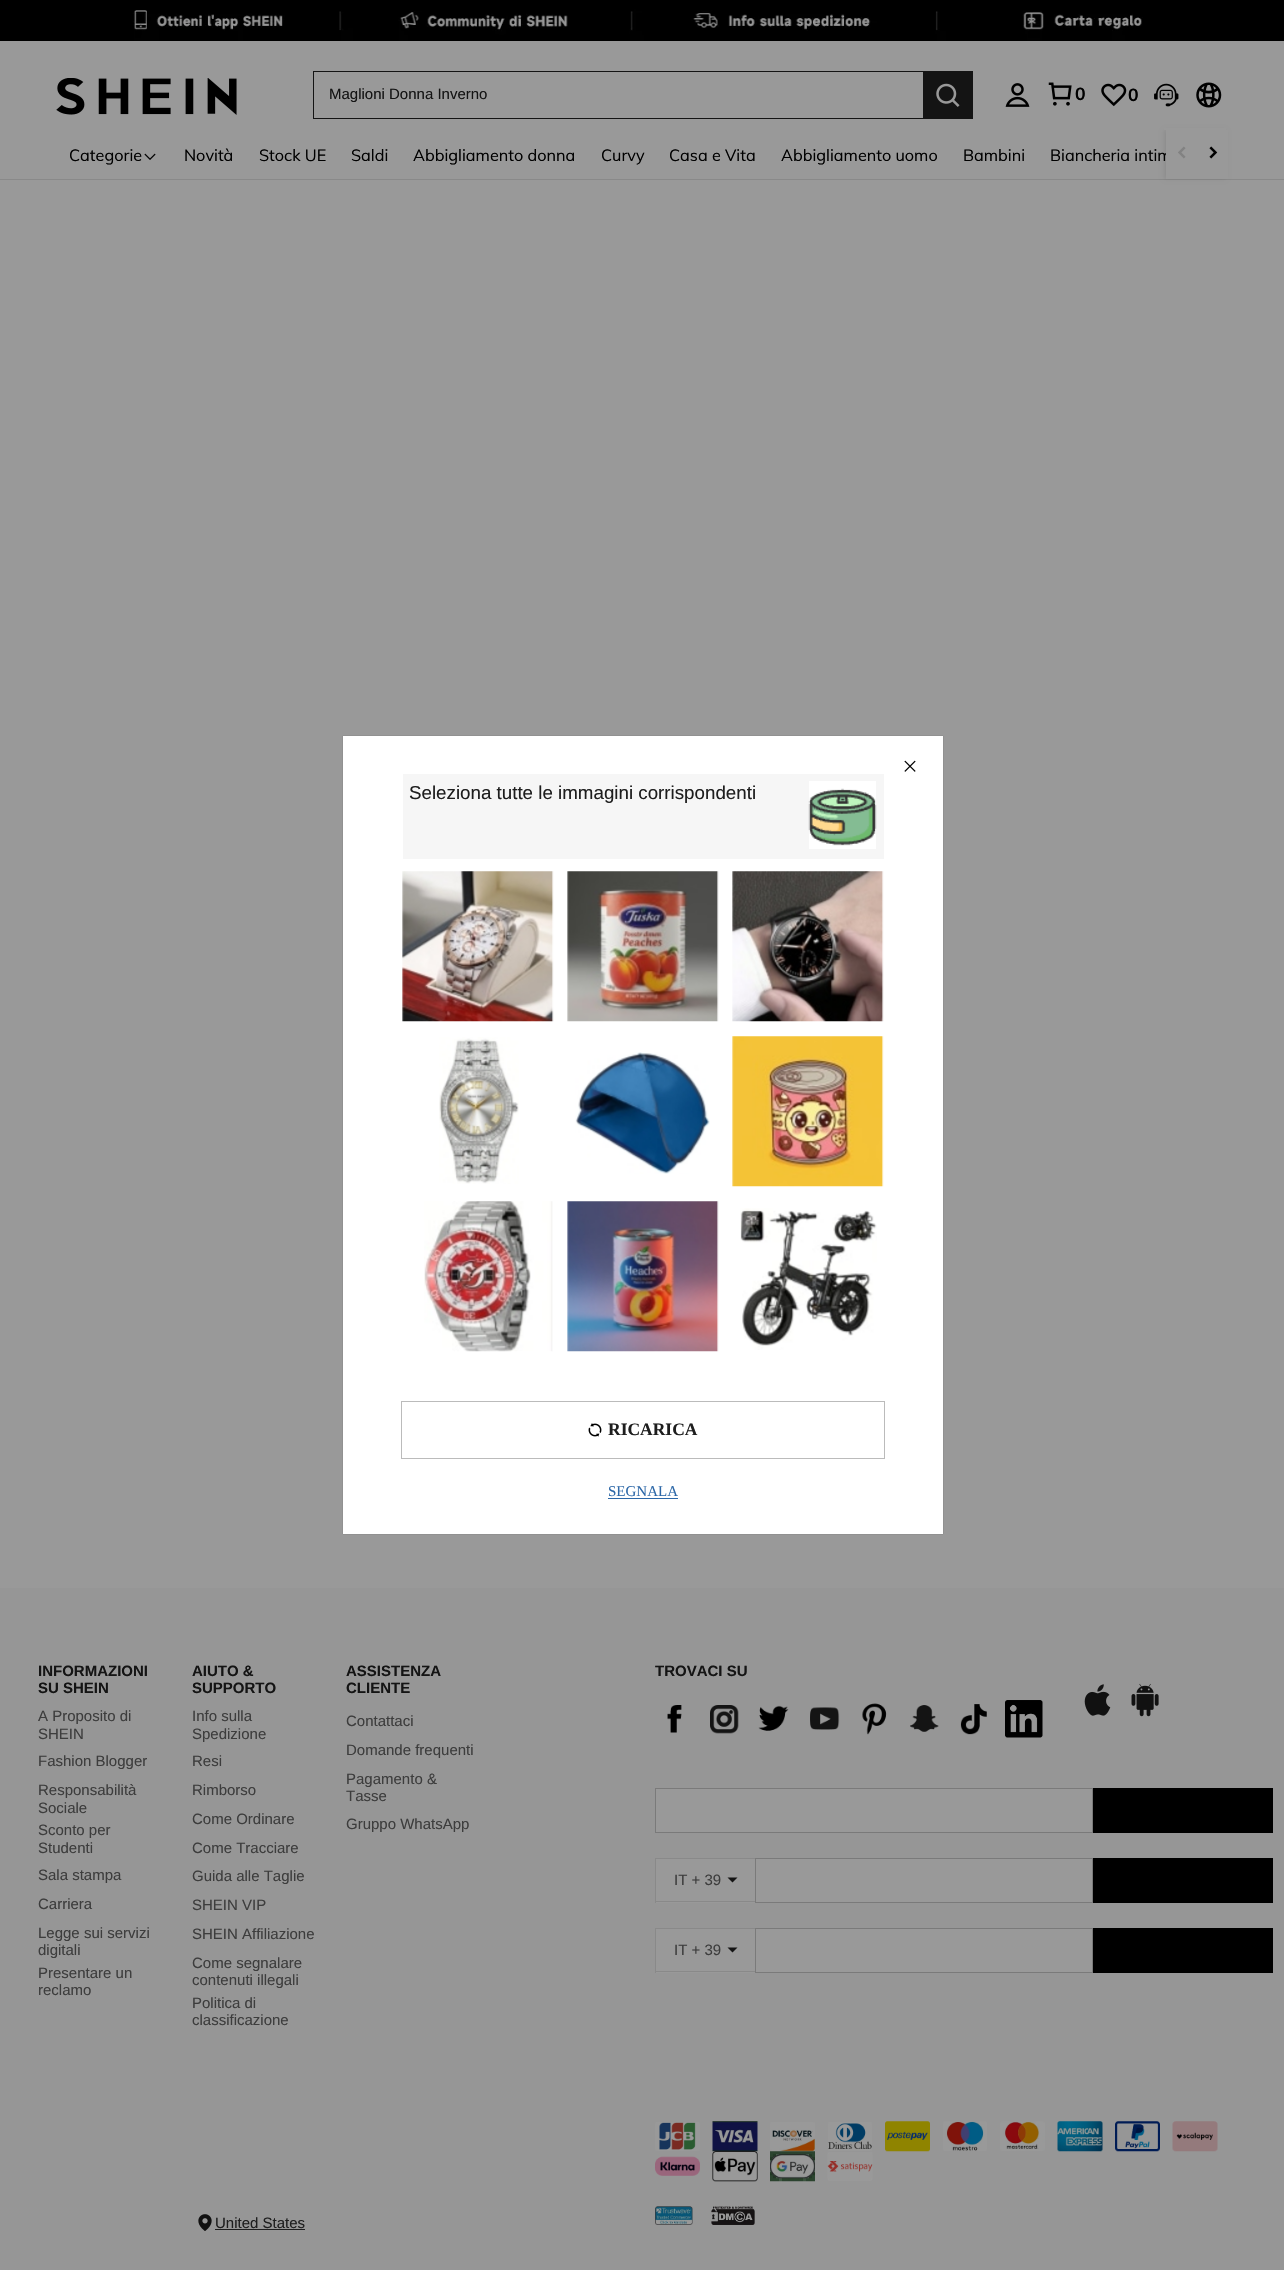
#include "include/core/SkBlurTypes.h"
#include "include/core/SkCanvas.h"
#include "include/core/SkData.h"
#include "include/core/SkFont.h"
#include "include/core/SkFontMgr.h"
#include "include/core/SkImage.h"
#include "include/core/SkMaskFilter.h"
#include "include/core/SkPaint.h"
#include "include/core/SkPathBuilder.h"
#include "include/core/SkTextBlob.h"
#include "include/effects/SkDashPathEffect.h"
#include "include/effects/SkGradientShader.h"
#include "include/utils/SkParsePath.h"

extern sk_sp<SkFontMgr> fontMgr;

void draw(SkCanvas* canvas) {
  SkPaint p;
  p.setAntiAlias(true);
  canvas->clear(SkColorSetRGB(153, 153, 153));
  canvas->drawImageRect(SkImages::DeferredFromEncodedData(SkData::MakeFromFileName("images/1.png")), SkRect::MakeLTRB(0, 0, 1284, 41), SkSamplingOptions());
  p.setColor(SkColorSetRGB(137, 137, 137));
  canvas->drawRect(SkRect::MakeLTRB(0, 179, 1284, 180), p);
  p.setColor(SkColorSetARGB(20, 0, 0, 0));
  p.setMaskFilter(SkMaskFilter::MakeBlur(kNormal_SkBlurStyle, 2));
  canvas->drawRect(SkRect::MakeLTRB(1164, 130, 1226, 179), p);
  p.setMaskFilter(nullptr);
  p.setColor(SkColorSetRGB(153, 153, 153));
  canvas->drawRect(SkRect::MakeLTRB(1164, 128, 1226, 130), p);
  canvas->drawImageRect(SkImages::DeferredFromEncodedData(SkData::MakeFromFileName("images/2.png")), SkRect::MakeLTRB(56, 78, 237, 115), SkSamplingOptions());
  p.setColor(SkColorSetRGB(20, 20, 20));
  canvas->drawRect(SkRect::MakeLTRB(313, 71, 923, 72), p);
  canvas->drawRect(SkRect::MakeLTRB(313, 118, 923, 119), p);
  canvas->drawRect(SkRect::MakeLTRB(313, 71, 314, 119), p);
  canvas->drawRect(SkRect::MakeLTRB(923, 71, 973, 119), p);
  canvas->drawImageRect(SkImages::DeferredFromEncodedData(SkData::MakeFromFileName("images/3.png")), SkRect::MakeLTRB(936, 83, 960, 107), SkSamplingOptions());
  canvas->drawImageRect(SkImages::DeferredFromEncodedData(SkData::MakeFromFileName("images/4.png")), SkRect::MakeLTRB(1005, 83, 1030, 107), SkSamplingOptions());
  canvas->drawImageRect(SkImages::DeferredFromEncodedData(SkData::MakeFromFileName("images/5.png")), SkRect::MakeLTRB(1048, 82, 1072, 106), SkSamplingOptions());
  canvas->drawImageRect(SkImages::DeferredFromEncodedData(SkData::MakeFromFileName("images/6.png")), SkRect::MakeLTRB(1101, 83, 1127, 107), SkSamplingOptions());
  canvas->drawImageRect(SkImages::DeferredFromEncodedData(SkData::MakeFromFileName("images/7.png")), SkRect::MakeLTRB(1154, 83, 1179, 107), SkSamplingOptions());
  canvas->drawImageRect(SkImages::DeferredFromEncodedData(SkData::MakeFromFileName("images/8.png")), SkRect::MakeLTRB(1196, 82, 1222, 108), SkSamplingOptions());
  canvas->drawImageRect(SkImages::DeferredFromEncodedData(SkData::MakeFromFileName("images/9.png")), SkRect::MakeLTRB(144, 153, 156, 160), SkSamplingOptions());
  p.setColor(SkColorSetRGB(150, 150, 150));
  canvas->drawRect(SkRect::MakeLTRB(0, 1588, 1284, 2270), p);
  canvas->drawImageRect(SkImages::DeferredFromEncodedData(SkData::MakeFromFileName("images/12.png")), SkRect::MakeLTRB(667, 1705, 682, 1733), SkSamplingOptions());
  canvas->drawImageRect(SkImages::DeferredFromEncodedData(SkData::MakeFromFileName("images/13.png")), SkRect::MakeLTRB(710, 1705, 739, 1734), SkSamplingOptions());
  canvas->drawImageRect(SkImages::DeferredFromEncodedData(SkData::MakeFromFileName("images/14.png")), SkRect::MakeLTRB(758, 1705, 789, 1731), SkSamplingOptions());
  canvas->drawImageRect(SkImages::DeferredFromEncodedData(SkData::MakeFromFileName("images/15.png")), SkRect::MakeLTRB(810, 1707, 840, 1730), SkSamplingOptions());
  canvas->drawImageRect(SkImages::DeferredFromEncodedData(SkData::MakeFromFileName("images/16.png")), SkRect::MakeLTRB(862, 1703, 887, 1735), SkSamplingOptions());
  canvas->drawImageRect(SkImages::DeferredFromEncodedData(SkData::MakeFromFileName("images/17.png")), SkRect::MakeLTRB(910, 1705, 939, 1732), SkSamplingOptions());
  canvas->drawImageRect(SkImages::DeferredFromEncodedData(SkData::MakeFromFileName("images/18.png")), SkRect::MakeLTRB(960, 1704, 987, 1735), SkSamplingOptions());
  canvas->drawImageRect(SkImages::DeferredFromEncodedData(SkData::MakeFromFileName("images/19.png")), SkRect::MakeLTRB(1005, 1700, 1043, 1738), SkSamplingOptions());
  canvas->drawImageRect(SkImages::DeferredFromEncodedData(SkData::MakeFromFileName("images/20.png")), SkRect::MakeLTRB(1084, 1684, 1111, 1716), SkSamplingOptions());
  canvas->drawImageRect(SkImages::DeferredFromEncodedData(SkData::MakeFromFileName("images/21.png")), SkRect::MakeLTRB(1131, 1683, 1159, 1717), SkSamplingOptions());
  p.setColor(SkColorSetRGB(153, 153, 153));
  canvas->drawRect(SkRect::MakeLTRB(655.5f, 1788.5f, 1092.5f, 1832.5f), p);
  p.setStyle(SkPaint::kStroke_Style);
  p.setStrokeWidth(1);
  p.setColor(SkColorSetRGB(122, 122, 122));
  canvas->drawRect(SkRect::MakeLTRB(655.5f, 1788.5f, 1092.5f, 1832.5f), p);
  p.setStyle(SkPaint::kFill_Style);
  p.setColor(SK_ColorBLACK);
  canvas->drawRect(SkRect::MakeLTRB(1093, 1788, 1273, 1833), p);
  p.setColor(SkColorSetRGB(153, 153, 153));
  canvas->drawRect(SkRect::MakeLTRB(656, 1859, 755, 1903), p);
  p.setColor(SkColorSetRGB(137, 137, 137));
  canvas->drawRect(SkRect::MakeLTRB(655, 1858, 755, 1859), p);
  canvas->drawRect(SkRect::MakeLTRB(655, 1901, 755, 1902), p);
  canvas->drawRect(SkRect::MakeLTRB(655, 1858, 656, 1903), p);
  p.setColor(SkColorSetRGB(20, 20, 20));
  canvas->drawPath(SkPathBuilder().moveTo(727.5f, 1877.5f).lineTo(737.5f, 1877.5f).lineTo(732.5f, 1882.5f).close().detach(), p);
  p.setColor(SkColorSetRGB(153, 153, 153));
  canvas->drawRect(SkRect::MakeLTRB(755.5f, 1858.5f, 1092.5f, 1902.5f), p);
  p.setStyle(SkPaint::kStroke_Style);
  p.setColor(SkColorSetRGB(122, 122, 122));
  canvas->drawRect(SkRect::MakeLTRB(755.5f, 1858.5f, 1092.5f, 1902.5f), p);
  p.setStyle(SkPaint::kFill_Style);
  p.setColor(SK_ColorBLACK);
  canvas->drawRect(SkRect::MakeLTRB(1093, 1858, 1273, 1903), p);
  p.setColor(SkColorSetRGB(153, 153, 153));
  canvas->drawRect(SkRect::MakeLTRB(656, 1929, 755, 1973), p);
  p.setColor(SkColorSetRGB(137, 137, 137));
  canvas->drawRect(SkRect::MakeLTRB(655, 1928, 755, 1929), p);
  canvas->drawRect(SkRect::MakeLTRB(655, 1971, 755, 1972), p);
  canvas->drawRect(SkRect::MakeLTRB(655, 1928, 656, 1973), p);
  p.setColor(SkColorSetRGB(20, 20, 20));
  canvas->drawPath(SkPathBuilder().moveTo(727.5f, 1947.5f).lineTo(737.5f, 1947.5f).lineTo(732.5f, 1952.5f).close().detach(), p);
  p.setColor(SkColorSetRGB(153, 153, 153));
  canvas->drawRect(SkRect::MakeLTRB(755.5f, 1928.5f, 1092.5f, 1972.5f), p);
  p.setStyle(SkPaint::kStroke_Style);
  p.setColor(SkColorSetRGB(122, 122, 122));
  canvas->drawRect(SkRect::MakeLTRB(755.5f, 1928.5f, 1092.5f, 1972.5f), p);
  p.setStyle(SkPaint::kFill_Style);
  p.setColor(SK_ColorBLACK);
  canvas->drawRect(SkRect::MakeLTRB(1093, 1928, 1273, 1973), p);
  canvas->drawImageRect(SkImages::DeferredFromEncodedData(SkData::MakeFromFileName("images/22.png")), SkRect::MakeLTRB(655, 2122, 700, 2151), SkSamplingOptions());
  canvas->drawImageRect(SkImages::DeferredFromEncodedData(SkData::MakeFromFileName("images/23.png")), SkRect::MakeLTRB(712, 2121, 758, 2152), SkSamplingOptions());
  canvas->drawImageRect(SkImages::DeferredFromEncodedData(SkData::MakeFromFileName("images/24.png")), SkRect::MakeLTRB(770, 2122, 815, 2152), SkSamplingOptions());
  canvas->drawImageRect(SkImages::DeferredFromEncodedData(SkData::MakeFromFileName("images/25.png")), SkRect::MakeLTRB(828, 2122, 872, 2151), SkSamplingOptions());
  canvas->drawImageRect(SkImages::DeferredFromEncodedData(SkData::MakeFromFileName("images/26.png")), SkRect::MakeLTRB(885, 2121, 930, 2152), SkSamplingOptions());
  canvas->drawImageRect(SkImages::DeferredFromEncodedData(SkData::MakeFromFileName("images/27.png")), SkRect::MakeLTRB(943, 2121, 987, 2151), SkSamplingOptions());
  canvas->drawImageRect(SkImages::DeferredFromEncodedData(SkData::MakeFromFileName("images/28.png")), SkRect::MakeLTRB(1000, 2121, 1045, 2151), SkSamplingOptions());
  canvas->drawImageRect(SkImages::DeferredFromEncodedData(SkData::MakeFromFileName("images/29.png")), SkRect::MakeLTRB(1057, 2121, 1103, 2152), SkSamplingOptions());
  canvas->drawImageRect(SkImages::DeferredFromEncodedData(SkData::MakeFromFileName("images/30.png")), SkRect::MakeLTRB(1115, 2121, 1160, 2152), SkSamplingOptions());
  canvas->drawImageRect(SkImages::DeferredFromEncodedData(SkData::MakeFromFileName("images/31.png")), SkRect::MakeLTRB(1172, 2121, 1218, 2152), SkSamplingOptions());
  canvas->drawImageRect(SkImages::DeferredFromEncodedData(SkData::MakeFromFileName("images/32.png")), SkRect::MakeLTRB(655, 2156, 700, 2176), SkSamplingOptions());
  canvas->drawImageRect(SkImages::DeferredFromEncodedData(SkData::MakeFromFileName("images/33.png")), SkRect::MakeLTRB(712, 2151, 758, 2182), SkSamplingOptions());
  canvas->drawImageRect(SkImages::DeferredFromEncodedData(SkData::MakeFromFileName("images/34.png")), SkRect::MakeLTRB(770, 2151, 815, 2182), SkSamplingOptions());
  canvas->drawImageRect(SkImages::DeferredFromEncodedData(SkData::MakeFromFileName("images/35.png")), SkRect::MakeLTRB(827, 2152, 873, 2181), SkSamplingOptions());
  canvas->drawImageRect(SkImages::DeferredFromEncodedData(SkData::MakeFromFileName("images/36.png")), SkRect::MakeLTRB(198, 2214, 212, 2231), SkSamplingOptions());
  p.setColor(SkColorSetRGB(30, 30, 30));
  canvas->drawRect(SkRect::MakeLTRB(215, 2229, 305, 2230), p);
  canvas->drawImageRect(SkImages::DeferredFromEncodedData(SkData::MakeFromFileName("images/37.png")), SkRect::MakeLTRB(655, 2206, 693, 2225), SkSamplingOptions());
  canvas->drawImageRect(SkImages::DeferredFromEncodedData(SkData::MakeFromFileName("images/38.png")), SkRect::MakeLTRB(711, 2206, 755, 2225), SkSamplingOptions());
  p.setColor(SkColorSetARGB(77, 0, 0, 0));
  p.setMaskFilter(SkMaskFilter::MakeBlur(kNormal_SkBlurStyle, 0.5f));
  canvas->drawRect(SkRect::MakeLTRB(343, 736, 943, 1534), p);
  p.setMaskFilter(nullptr);
  p.setColor(SK_ColorWHITE);
  canvas->drawRect(SkRect::MakeLTRB(343, 736, 943, 1534), p);
  canvas->drawImageRect(SkImages::DeferredFromEncodedData(SkData::MakeFromFileName("images/39.png")), SkRect::MakeLTRB(904, 760, 916, 772), SkSamplingOptions());
  p.setColor(SkColorSetRGB(246, 246, 246));
  canvas->drawRect(SkRect::MakeLTRB(403, 774, 884, 859), p);
  p.setColor(SK_ColorWHITE);
  canvas->drawRect(SkRect::MakeLTRB(809, 781, 876, 849), p);
  canvas->drawImageRect(SkImages::DeferredFromEncodedData(SkData::MakeFromFileName("images/40.png")), SkRect::MakeLTRB(808, 788, 877, 846), SkSamplingOptions());
  canvas->drawImageRect(SkImages::DeferredFromEncodedData(SkData::MakeFromFileName("images/41.png")), SkRect::MakeLTRB(402, 871, 554, 1022), SkSamplingOptions());
  canvas->drawImageRect(SkImages::DeferredFromEncodedData(SkData::MakeFromFileName("images/42.png")), SkRect::MakeLTRB(567, 871, 719, 1022), SkSamplingOptions());
  canvas->drawImageRect(SkImages::DeferredFromEncodedData(SkData::MakeFromFileName("images/43.png")), SkRect::MakeLTRB(732, 871, 884, 1022), SkSamplingOptions());
  canvas->drawImageRect(SkImages::DeferredFromEncodedData(SkData::MakeFromFileName("images/44.png")), SkRect::MakeLTRB(439, 1037, 519, 1184), SkSamplingOptions());
  canvas->drawImageRect(SkImages::DeferredFromEncodedData(SkData::MakeFromFileName("images/45.png")), SkRect::MakeLTRB(575, 1052, 710, 1174), SkSamplingOptions());
  canvas->drawImageRect(SkImages::DeferredFromEncodedData(SkData::MakeFromFileName("images/46.png")), SkRect::MakeLTRB(732, 1036, 884, 1187), SkSamplingOptions());
  canvas->drawImageRect(SkImages::DeferredFromEncodedData(SkData::MakeFromFileName("images/47.png")), SkRect::MakeLTRB(424, 1201, 553, 1352), SkSamplingOptions());
  canvas->drawImageRect(SkImages::DeferredFromEncodedData(SkData::MakeFromFileName("images/48.png")), SkRect::MakeLTRB(567, 1201, 719, 1352), SkSamplingOptions());
  canvas->drawImageRect(SkImages::DeferredFromEncodedData(SkData::MakeFromFileName("images/49.png")), SkRect::MakeLTRB(740, 1208, 877, 1350), SkSamplingOptions());
  p.setStyle(SkPaint::kStroke_Style);
  p.setColor(SkColorSetRGB(187, 187, 187));
  canvas->drawRect(SkRect::MakeLTRB(401.5f, 1401.5f, 884.5f, 1458.5f), p);
  canvas->drawImageRect(SkImages::DeferredFromEncodedData(SkData::MakeFromFileName("images/50.png")), SkRect::MakeLTRB(588, 1423, 602, 1437), SkSamplingOptions());
  p.setStyle(SkPaint::kFill_Style);
  p.setColor(SkColorSetRGB(45, 104, 168));
  canvas->drawRect(SkRect::MakeLTRB(608, 1498, 678, 1499), p);
  SkFont font1(fontMgr->matchFamilyStyle("Liberation Sans", SkFontStyle::Normal()), 15);
  font1.setSubpixel(true);
  p.setColor(SkColorSetRGB(20, 20, 20));
  canvas->drawString("Maglioni Donna Inverno", 329, 99, font1, p);
  SkFont font2(fontMgr->matchFamilyStyle("Muli", SkFontStyle::Bold()), 17.5f);
  font2.setSubpixel(true);
  p.setColor(SK_ColorBLACK);
  canvas->drawString("0", 1075, 100, font2, p);
  canvas->drawString("0", 1128, 101, font2, p);
  SkFont font3(fontMgr->matchFamilyStyle("Muli", SkFontStyle::Normal()), 16.25f);
  font3.setSubpixel(true);
  canvas->drawString("Categorie", 69, 161, font3, p);
  canvas->drawString("Novità", 184, 161, font3, p);
  canvas->drawString("Stock UE", 259, 161, font3, p);
  canvas->drawString("Saldi", 351, 161, font3, p);
  canvas->drawString("Abbigliamento donna", 413, 161, font3, p);
  canvas->drawString("Curvy", 601, 161, font3, p);
  canvas->drawString("Casa e Vita", 669, 161, font3, p);
  canvas->drawString("Abbigliamento uomo", 781, 161, font3, p);
  canvas->drawString("Bambini", 963, 161, font3, p);
  canvas->drawString("Biancheria intim", 1050, 161, font3, p);
  p.setColor(SkColorSetRGB(153, 153, 153));
  canvas->drawRect(SkRect::MakeLTRB(1166, 130, 1228, 179), p);
  canvas->drawImageRect(SkImages::DeferredFromEncodedData(SkData::MakeFromFileName("images/10.png")), SkRect::MakeLTRB(1178, 146, 1186, 159), SkSamplingOptions());
  canvas->drawImageRect(SkImages::DeferredFromEncodedData(SkData::MakeFromFileName("images/11.png")), SkRect::MakeLTRB(1209, 146, 1218, 159), SkSamplingOptions());
  SkFont font4(fontMgr->matchFamilyStyle("Liberation Sans", SkFontStyle::Bold()), 15);
  font4.setSubpixel(true);
  p.setColor(SkColorSetRGB(20, 20, 20));
  canvas->drawString("INFORMAZIONI", 38, 1676, font4, p);
  canvas->drawString("SU SHEIN", 38, 1693, font4, p);
  p.setColor(SkColorSetRGB(61, 61, 61));
  canvas->drawString("A Proposito di", 38, 1721, font1, p);
  canvas->drawString("SHEIN", 38, 1739, font1, p);
  canvas->drawString("Fashion Blogger", 38, 1766, font1, p);
  canvas->drawString("Responsabilità", 38, 1795, font1, p);
  canvas->drawString("Sociale", 38, 1813, font1, p);
  canvas->drawString("Sconto per", 38, 1835, font1, p);
  canvas->drawString("Studenti", 38, 1853, font1, p);
  canvas->drawString("Sala stampa", 38, 1880, font1, p);
  canvas->drawString("Carriera", 38, 1909, font1, p);
  canvas->drawString("Legge sui servizi", 38, 1938, font1, p);
  canvas->drawString("digitali", 38, 1955, font1, p);
  canvas->drawString("Presentare un", 38, 1978, font1, p);
  canvas->drawString("reclamo", 38, 1995, font1, p);
  p.setColor(SkColorSetRGB(20, 20, 20));
  canvas->drawString("AIUTO &", 192, 1676, font4, p);
  canvas->drawString("SUPPORTO", 192, 1693, font4, p);
  p.setColor(SkColorSetRGB(61, 61, 61));
  canvas->drawString("Info sulla", 192, 1721, font1, p);
  canvas->drawString("Spedizione", 192, 1739, font1, p);
  canvas->drawString("Resi", 192, 1766, font1, p);
  canvas->drawString("Rimborso", 192, 1795, font1, p);
  canvas->drawString("Come Ordinare", 192, 1824, font1, p);
  canvas->drawString("Come Tracciare", 192, 1853, font1, p);
  canvas->drawString("Guida alle Taglie", 192, 1881, font1, p);
  canvas->drawString("SHEIN VIP", 192, 1910, font1, p);
  canvas->drawString("SHEIN Affiliazione", 192, 1939, font1, p);
  canvas->drawString("Come segnalare", 192, 1968, font1, p);
  canvas->drawString("contenuti illegali", 192, 1985, font1, p);
  canvas->drawString("Politica di", 192, 2008, font1, p);
  canvas->drawString("classificazione", 192, 2025, font1, p);
  p.setColor(SkColorSetRGB(20, 20, 20));
  canvas->drawString("ASSISTENZA", 346, 1676, font4, p);
  canvas->drawString("CLIENTE", 346, 1693, font4, p);
  p.setColor(SkColorSetRGB(61, 61, 61));
  canvas->drawString("Contattaci", 346, 1726, font1, p);
  canvas->drawString("Domande frequenti", 346, 1755, font1, p);
  canvas->drawString("Pagamento &", 346, 1784, font1, p);
  canvas->drawString("Tasse", 346, 1801, font1, p);
  canvas->drawString("Gruppo WhatsApp", 346, 1829, font1, p);
  p.setColor(SkColorSetRGB(20, 20, 20));
  canvas->drawString("TROVACI SU", 655, 1676, font4, p);
  p.setColor(SkColorSetRGB(61, 61, 61));
  canvas->drawString("IT + 39", 674, 1885, font1, p);
  canvas->drawString("IT + 39", 674, 1955, font1, p);
  p.setColor(SkColorSetRGB(30, 30, 30));
  canvas->drawString("United States", 215, 2228, font1, p);
  SkFont font5(fontMgr->matchFamilyStyle("Liberation Sans", SkFontStyle::Normal()), 18.75f);
  font5.setSubpixel(true);
  canvas->drawString("Seleziona tutte le immagini corrispondenti", 409, 799, font5, p);
  SkFont font6(fontMgr->matchFamilyStyle("Liberation Serif", SkFontStyle::Bold()), 17.5f);
  font6.setSubpixel(true);
  canvas->drawString("RICARICA", 608, 1435, font6, p);
  SkFont font7(fontMgr->matchFamilyStyle("Liberation Serif", SkFontStyle::Normal()), 15);
  font7.setSubpixel(true);
  p.setColor(SkColorSetRGB(45, 104, 168));
  canvas->drawString("SEGNALA", 608, 1496, font7, p);
}
